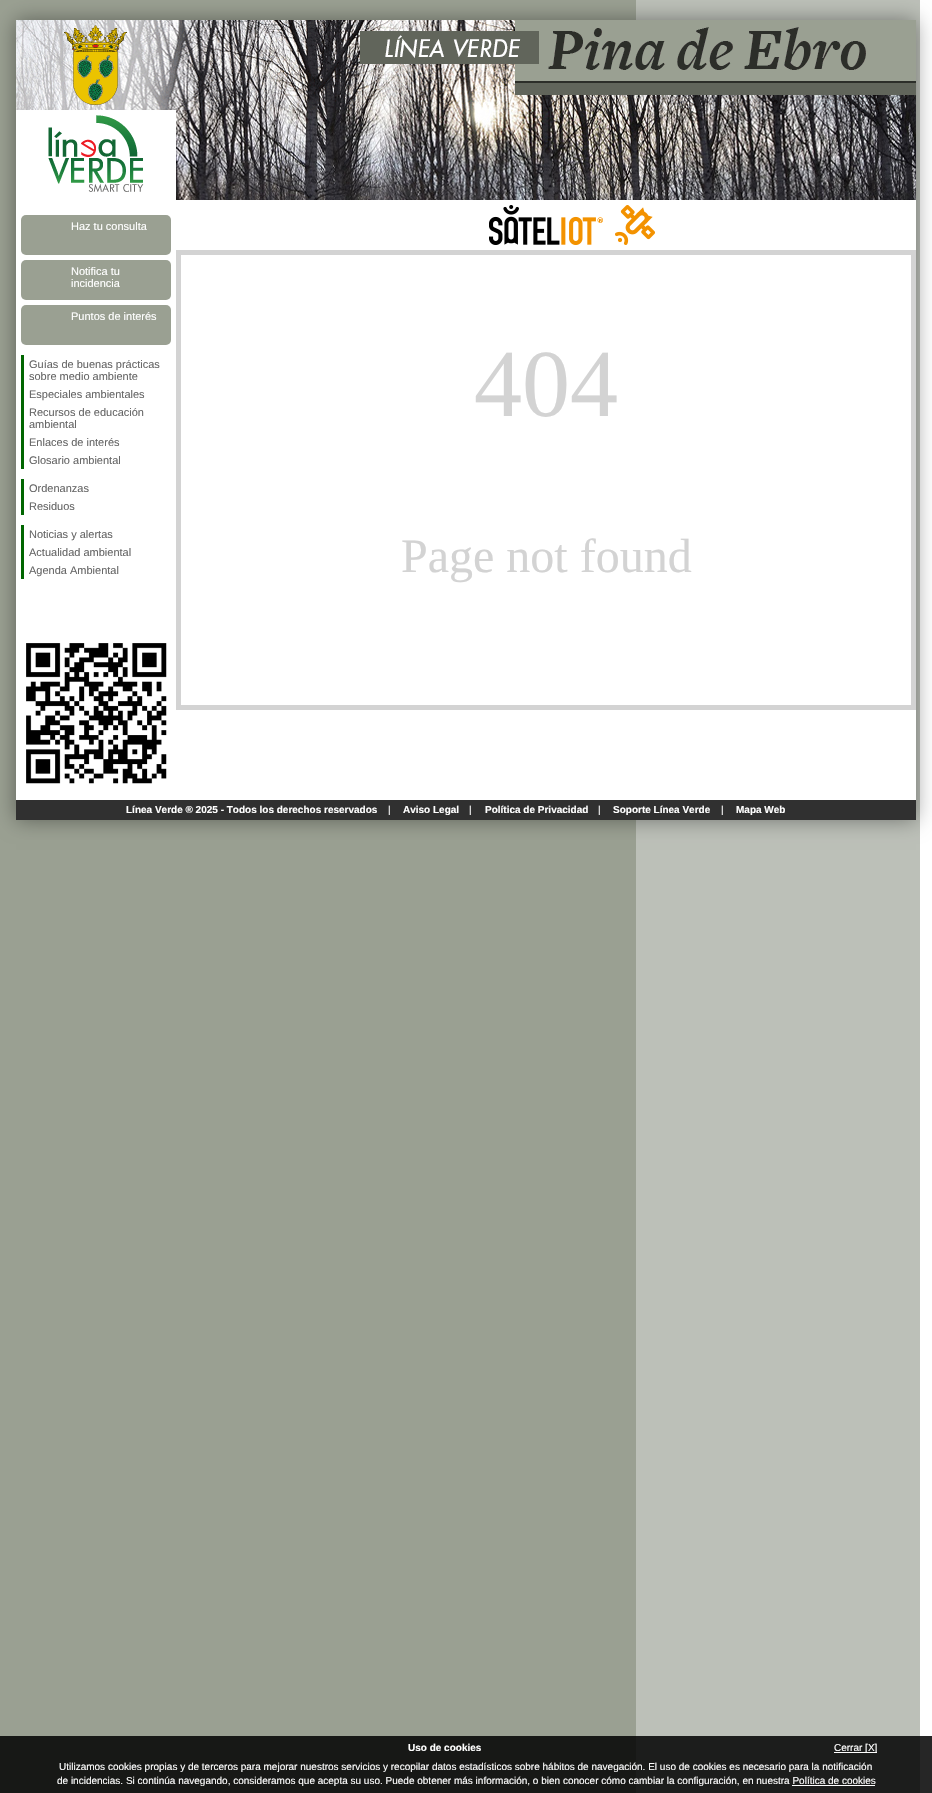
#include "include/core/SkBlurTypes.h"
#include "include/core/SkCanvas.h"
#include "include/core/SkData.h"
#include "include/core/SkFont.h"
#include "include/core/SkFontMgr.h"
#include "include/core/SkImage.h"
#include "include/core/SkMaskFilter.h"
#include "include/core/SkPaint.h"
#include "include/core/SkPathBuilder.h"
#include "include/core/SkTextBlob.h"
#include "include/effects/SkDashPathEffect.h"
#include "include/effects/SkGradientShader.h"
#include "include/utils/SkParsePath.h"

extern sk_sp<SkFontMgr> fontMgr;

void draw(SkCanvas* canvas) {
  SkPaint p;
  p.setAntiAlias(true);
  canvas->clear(SK_ColorWHITE);
  canvas->drawImageRect(SkImages::DeferredFromEncodedData(SkData::MakeFromFileName("images/1.png")), SkRect::MakeLTRB(0, 0, 920, 1793), SkSamplingOptions());
  p.setColor(SkColorSetARGB(102, 0, 0, 0));
  p.setMaskFilter(SkMaskFilter::MakeBlur(kNormal_SkBlurStyle, 10));
  canvas->drawRect(SkRect::MakeLTRB(16, 20, 916, 820), p);
  p.setMaskFilter(nullptr);
  p.setColor(SK_ColorWHITE);
  canvas->drawRect(SkRect::MakeLTRB(16, 110, 916, 800), p);
  canvas->drawImageRect(SkImages::DeferredFromEncodedData(SkData::MakeFromFileName("images/2.png")), SkRect::MakeLTRB(16, 20, 916, 110), SkSamplingOptions());
  canvas->drawImageRect(SkImages::DeferredFromEncodedData(SkData::MakeFromFileName("images/3.png")), SkRect::MakeLTRB(48, 115, 144, 192), SkSamplingOptions());
  canvas->drawImageRect(SkImages::DeferredFromEncodedData(SkData::MakeFromFileName("images/4.png")), SkRect::MakeLTRB(176, 110, 916, 200), SkSamplingOptions());
  canvas->drawImageRect(SkImages::DeferredFromEncodedData(SkData::MakeFromFileName("images/5.png")), SkRect::MakeLTRB(489, 205, 655, 245), SkSamplingOptions());
  p.setColor(SkColorSetRGB(154, 160, 146));
  canvas->drawRoundRect(SkRect::MakeLTRB(21, 215, 171, 255), 5, 5, p);
  canvas->drawRoundRect(SkRect::MakeLTRB(21, 260, 171, 300), 5, 5, p);
  canvas->drawRoundRect(SkRect::MakeLTRB(21, 305, 171, 345), 5, 5, p);
  p.setColor(SkColorSetRGB(0, 102, 0));
  canvas->drawRect(SkRect::MakeLTRB(21, 355, 24, 469), p);
  canvas->drawRect(SkRect::MakeLTRB(21, 479, 24, 515), p);
  canvas->drawRect(SkRect::MakeLTRB(21, 525, 24, 579), p);
  canvas->drawImageRect(SkImages::DeferredFromEncodedData(SkData::MakeFromFileName("images/6.png")), SkRect::MakeLTRB(26, 643, 167, 784), SkSamplingOptions());
  p.setStyle(SkPaint::kStroke_Style);
  p.setStrokeWidth(5);
  p.setColor(SkColorSetRGB(211, 211, 211));
  canvas->drawRect(SkRect::MakeLTRB(178.5f, 252.5f, 913.5f, 707.5f), p);
  p.setStyle(SkPaint::kFill_Style);
  p.setColor(SkColorSetRGB(48, 48, 48));
  canvas->drawRect(SkRect::MakeLTRB(16, 800, 916, 820), p);
  p.setColor(SkColorSetARGB(217, 0, 0, 0));
  canvas->drawRect(SkRect::MakeLTRB(0, 1736, 932, 1793), p);
  p.setColor(SK_ColorWHITE);
  canvas->drawRect(SkRect::MakeLTRB(834, 1752, 877, 1753), p);
  canvas->drawRect(SkRect::MakeLTRB(792, 1785, 875, 1786), p);
  SkFont font1(fontMgr->matchFamilyStyle("Liberation Sans", SkFontStyle::Normal()), 11);
  font1.setSubpixel(true);
  canvas->drawString("Haz tu consulta", 71, 230, font1, p);
  canvas->drawString("Notifica tu", 71, 275, font1, p);
  canvas->drawString("incidencia", 71, 287, font1, p);
  canvas->drawString("Puntos de interés", 71, 320, font1, p);
  p.setColor(SkColorSetRGB(102, 102, 102));
  canvas->drawString("Guías de buenas prácticas", 29, 368, font1, p);
  canvas->drawString("sobre medio ambiente", 29, 380, font1, p);
  canvas->drawString("Especiales ambientales", 29, 398, font1, p);
  canvas->drawString("Recursos de educación", 29, 416, font1, p);
  canvas->drawString("ambiental", 29, 428, font1, p);
  canvas->drawString("Enlaces de interés", 29, 446, font1, p);
  canvas->drawString("Glosario ambiental", 29, 464, font1, p);
  canvas->drawString("Ordenanzas", 29, 492, font1, p);
  canvas->drawString("Residuos", 29, 510, font1, p);
  canvas->drawString("Noticias y alertas", 29, 538, font1, p);
  canvas->drawString("Actualidad ambiental", 29, 556, font1, p);
  canvas->drawString("Agenda Ambiental", 29, 574, font1, p);
  SkFont font2(fontMgr->matchFamilyStyle("Liberation Serif", SkFontStyle::Normal()), 96);
  font2.setSubpixel(true);
  p.setColor(SkColorSetRGB(211, 211, 211));
  canvas->drawString("404", 474, 416, font2, p);
  SkFont font3(fontMgr->matchFamilyStyle("Liberation Serif", SkFontStyle::Normal()), 48);
  font3.setSubpixel(true);
  canvas->drawString("Page not found", 401, 572, font3, p);
  SkFont font4(fontMgr->matchFamilyStyle("Liberation Sans", SkFontStyle::Bold()), 10);
  font4.setSubpixel(true);
  p.setColor(SK_ColorWHITE);
  canvas->drawString("Línea Verde ® 2025 - Todos los derechos reservados", 126, 813, font4, p);
  SkFont font5(fontMgr->matchFamilyStyle("Liberation Sans", SkFontStyle::Normal()), 10);
  font5.setSubpixel(true);
  canvas->drawString("|", 388, 813, font5, p);
  canvas->drawString("Aviso Legal", 403, 813, font4, p);
  canvas->drawString("|", 469, 813, font5, p);
  canvas->drawString("Política de Privacidad", 485, 813, font4, p);
  canvas->drawString("|", 598, 813, font5, p);
  canvas->drawString("Soporte Línea Verde", 613, 813, font4, p);
  canvas->drawString("|", 721, 813, font5, p);
  canvas->drawString("Mapa Web", 736, 813, font4, p);
  canvas->drawString("Uso de cookies", 408, 1751, font4, p);
  canvas->drawString("Cerrar [X]", 834, 1751, font5, p);
  canvas->drawString("Utilizamos cookies propias y de terceros para mejorar nuestros servicios y recopilar datos estadísticos sobre hábitos de navegación. El uso de cookies es necesario para la notificación", 59, 1770, font5, p);
  canvas->drawString("de incidencias. Si continúa navegando, consideramos que acepta su uso. Puede obtener más información, o bien conocer cómo cambiar la configuración, en nuestra Política de cookies", 57, 1784, font5, p);
}
